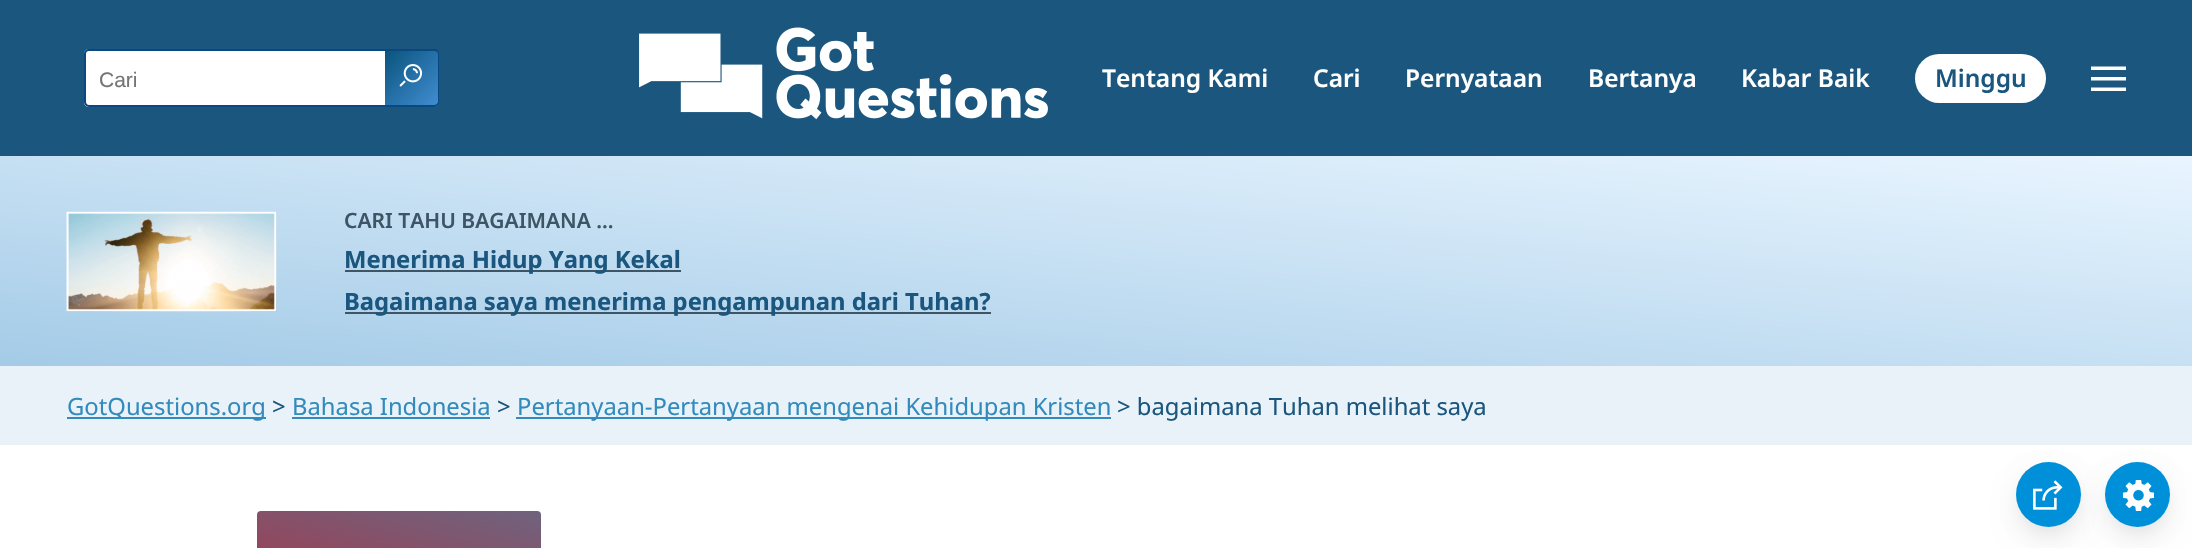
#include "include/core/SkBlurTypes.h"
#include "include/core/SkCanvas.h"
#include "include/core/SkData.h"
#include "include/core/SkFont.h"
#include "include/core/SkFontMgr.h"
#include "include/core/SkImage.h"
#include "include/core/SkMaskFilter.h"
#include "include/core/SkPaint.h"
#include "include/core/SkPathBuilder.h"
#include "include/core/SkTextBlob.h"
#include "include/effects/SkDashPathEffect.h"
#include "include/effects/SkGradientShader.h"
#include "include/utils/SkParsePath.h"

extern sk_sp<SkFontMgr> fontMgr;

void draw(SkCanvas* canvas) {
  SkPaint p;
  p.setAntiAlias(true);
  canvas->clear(SK_ColorWHITE);
  p.setColor(SkColorSetRGB(26, 86, 126));
  canvas->drawRect(SkRect::MakeLTRB(0, 0, 2192, 156), p);
  p.setColor(SK_ColorWHITE);
  canvas->drawPath(SkPathBuilder().moveTo(89, 49).lineTo(385, 49).lineTo(385, 107).lineTo(89, 107).cubicTo(86, 107, 84, 105, 84, 102).lineTo(84, 54).cubicTo(84, 51, 86, 49, 89, 49).close().detach(), p);
  p.setColor(SkColorSetRGB(9, 72, 129));
  canvas->drawPath(SkPathBuilder(SkPathFillType::kEvenOdd).moveTo(89, 49).lineTo(385, 49).lineTo(385, 107).lineTo(89, 107).cubicTo(86, 107, 84, 104, 84, 102).lineTo(84, 54).cubicTo(84, 51, 86, 49, 89, 49).close().moveTo(89, 51).lineTo(385, 51).lineTo(385, 105).lineTo(89, 105).cubicTo(87, 105, 86, 103, 86, 102).lineTo(86, 54).cubicTo(86, 52, 87, 51, 89, 51).close().detach(), p);
  {
    const SkColor colors[] = {SkColorSetRGB(10, 84, 125), SkColorSetRGB(64, 140, 208)};
    const float stops[] = {0, 1};
    const SkPoint ends[] = {{384, 52}, {438, 104}};
    p.setShader(SkGradientShader::MakeLinear(ends, colors, stops, 2, SkTileMode::kClamp));
    p.setAlpha(255);
  }
  canvas->drawRect(SkRect::MakeLTRB(385, 51, 438, 105), p);
  canvas->save();
  canvas->clipPath(SkPathBuilder().moveTo(385, 49).lineTo(434, 49).cubicTo(437, 49, 439, 51, 439, 54).lineTo(439, 102).cubicTo(439, 105, 437, 107, 434, 107).lineTo(385, 107).close().detach(), true);
  {
    const SkColor colors[] = {SkColorSetRGB(10, 84, 125), SkColorSetRGB(64, 140, 208)};
    const float stops[] = {0, 1};
    const SkPoint ends[] = {{384, 106}, {438, 158}};
    p.setShader(SkGradientShader::MakeLinear(ends, colors, stops, 2, SkTileMode::kClamp));
    p.setAlpha(255);
  }
  canvas->drawRect(SkRect::MakeLTRB(434, 105, 438, 107), p);
  canvas->restore();
  p.setShader(nullptr);
  p.setColor(SkColorSetRGB(9, 72, 129));
  canvas->drawPath(SkPathBuilder(SkPathFillType::kEvenOdd).moveTo(385, 49).lineTo(434, 49).cubicTo(437, 49, 439, 51, 439, 54).lineTo(439, 102).cubicTo(439, 104, 437, 107, 434, 107).lineTo(385, 107).close().moveTo(385, 51).lineTo(434, 51).cubicTo(436, 51, 438, 52, 438, 54).lineTo(438, 102).cubicTo(438, 103, 436, 105, 434, 105).lineTo(385, 105).close().detach(), p);
  canvas->drawImageRect(SkImages::DeferredFromEncodedData(SkData::MakeFromFileName("images/1.png")), SkRect::MakeLTRB(399, 64, 423, 87), SkSamplingOptions());
  canvas->drawImageRect(SkImages::DeferredFromEncodedData(SkData::MakeFromFileName("images/2.png")), SkRect::MakeLTRB(639, 27, 1048, 120), SkSamplingOptions());
  p.setColor(SK_ColorWHITE);
  canvas->drawRoundRect(SkRect::MakeLTRB(1915, 54, 2046, 103), 24.5f, 24.5f, p);
  canvas->drawPath(SkPathBuilder().moveTo(2091, 66.5f).lineTo(2126, 66.5f).lineTo(2126, 70).lineTo(2091, 70).close().moveTo(2091, 77).lineTo(2126, 77).lineTo(2126, 80.5f).lineTo(2091, 80.5f).close().moveTo(2091, 87.5f).lineTo(2126, 87.5f).lineTo(2126, 91).lineTo(2091, 91).close().detach(), p);
  {
    const SkColor colors[] = {SkColorSetRGB(164, 203, 231), SkColorSetRGB(233, 245, 255)};
    const float stops[] = {0, 1};
    const SkPoint ends[] = {{1076, 469}, {1116, 53}};
    p.setShader(SkGradientShader::MakeLinear(ends, colors, stops, 2, SkTileMode::kClamp));
    p.setAlpha(255);
  }
  canvas->drawRect(SkRect::MakeLTRB(0, 156, 2192, 366), p);
  canvas->drawImageRect(SkImages::DeferredFromEncodedData(SkData::MakeFromFileName("images/3.png")), SkRect::MakeLTRB(66, 211, 277, 312), SkSamplingOptions());
  p.setShader(nullptr);
  p.setColor(SkColorSetRGB(61, 85, 101));
  canvas->drawRect(SkRect::MakeLTRB(345, 270, 681, 272), p);
  canvas->drawRect(SkRect::MakeLTRB(345, 312, 991, 314), p);
  p.setColor(SkColorSetRGB(232, 242, 248));
  canvas->drawRect(SkRect::MakeLTRB(0, 366, 2192, 445), p);
  p.setColor(SkColorSetRGB(51, 139, 189));
  canvas->drawRect(SkRect::MakeLTRB(67, 417, 266, 419), p);
  canvas->drawRect(SkRect::MakeLTRB(292, 417, 490, 419), p);
  canvas->drawRect(SkRect::MakeLTRB(516, 417, 1111, 419), p);
  {
    const SkColor colors[] = {SkColorSetRGB(150, 68, 90), SkColorSetRGB(111, 99, 126)};
    const float stops[] = {0.15f, 1};
    const SkPoint ends[] = {{383, 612}, {415, 480}};
    p.setShader(SkGradientShader::MakeLinear(ends, colors, stops, 2, SkTileMode::kClamp));
    p.setAlpha(255);
  }
  canvas->drawRoundRect(SkRect::MakeLTRB(257, 511, 541, 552), 4, 4, p);
  p.setShader(nullptr);
  p.setColor(SkColorSetRGB(150, 68, 90));
  canvas->drawPath(SkPathBuilder().moveTo(256, 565).lineTo(276, 547).lineTo(276, 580).lineTo(256, 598).close().detach(), p);
  p.setColor(SkColorSetARGB(13, 0, 0, 0));
  p.setMaskFilter(SkMaskFilter::MakeBlur(kNormal_SkBlurStyle, 9.5f));
  canvas->drawRoundRect(SkRect::MakeLTRB(2111, 473, 2165, 527), 27, 27, p);
  p.setMaskFilter(nullptr);
  p.setColor(SkColorSetARGB(26, 0, 0, 0));
  p.setMaskFilter(SkMaskFilter::MakeBlur(kNormal_SkBlurStyle, 14));
  canvas->drawRoundRect(SkRect::MakeLTRB(2111, 481, 2165, 536), 27, 27, p);
  p.setMaskFilter(nullptr);
  p.setColor(SkColorSetRGB(0, 144, 217));
  canvas->drawCircle(2137.5f, 494.5f, 32.5f, p);
  p.setColor(SkColorSetARGB(13, 0, 0, 0));
  p.setMaskFilter(SkMaskFilter::MakeBlur(kNormal_SkBlurStyle, 9.5f));
  canvas->drawRoundRect(SkRect::MakeLTRB(2021, 473, 2076, 527), 27, 27, p);
  p.setMaskFilter(nullptr);
  p.setColor(SkColorSetARGB(26, 0, 0, 0));
  p.setMaskFilter(SkMaskFilter::MakeBlur(kNormal_SkBlurStyle, 14));
  canvas->drawRoundRect(SkRect::MakeLTRB(2021, 481, 2076, 536), 27.5f, 27.5f, p);
  p.setMaskFilter(nullptr);
  p.setColor(SkColorSetRGB(0, 144, 217));
  canvas->drawCircle(2048.5f, 494.5f, 32.5f, p);
  canvas->drawImageRect(SkImages::DeferredFromEncodedData(SkData::MakeFromFileName("images/4.png")), SkRect::MakeLTRB(2033, 480, 2063, 510), SkSamplingOptions());
  canvas->drawImageRect(SkImages::DeferredFromEncodedData(SkData::MakeFromFileName("images/5.png")), SkRect::MakeLTRB(2123, 480, 2154, 511), SkSamplingOptions());
  SkFont font1(fontMgr->matchFamilyStyle("Liberation Sans", SkFontStyle::Normal()), 21);
  font1.setSubpixel(true);
  p.setColor(SkColorSetRGB(117, 117, 117));
  canvas->drawString("Cari", 99, 87, font1, p);
  SkFont font2(fontMgr->matchFamilyStyle("Noto Sans", SkFontStyle(600, SkFontStyle::kNormal_Width, SkFontStyle::kUpright_Slant)), 24.5f);
  font2.setSubpixel(true);
  p.setColor(SK_ColorWHITE);
  canvas->drawString("Tentang Kami", 1102, 87, font2, p);
  canvas->drawString("Cari", 1313, 87, font2, p);
  canvas->drawString("Pernyataan", 1405, 87, font2, p);
  canvas->drawString("Bertanya", 1588, 87, font2, p);
  canvas->drawString("Kabar Baik", 1741, 87, font2, p);
  p.setColor(SkColorSetRGB(26, 86, 126));
  canvas->drawString("Minggu", 1935, 87, font2, p);
  SkFont font3(fontMgr->matchFamilyStyle("Noto Sans", SkFontStyle(600, SkFontStyle::kNormal_Width, SkFontStyle::kUpright_Slant)), 21);
  font3.setSubpixel(true);
  p.setColor(SkColorSetRGB(61, 85, 101));
  canvas->drawString("CARI TAHU BAGAIMANA ...", 344, 228, font3, p);
  SkFont font4(fontMgr->matchFamilyStyle("Noto Sans", SkFontStyle::Bold()), 23.8f);
  font4.setSubpixel(true);
  p.setColor(SkColorSetRGB(26, 86, 126));
  canvas->drawString("Menerima Hidup Yang Kekal", 344, 268, font4, p);
  canvas->drawString("Bagaimana saya menerima pengampunan dari Tuhan?", 344, 310, font4, p);
  SkFont font5(fontMgr->matchFamilyStyle("Noto Sans", SkFontStyle::Normal()), 23.8f);
  font5.setSubpixel(true);
  p.setColor(SkColorSetRGB(51, 139, 189));
  canvas->drawString("GotQuestions.org", 67, 415, font5, p);
  p.setColor(SkColorSetRGB(26, 86, 126));
  canvas->drawString(">", 272, 415, font5, p);
  p.setColor(SkColorSetRGB(51, 139, 189));
  canvas->drawString("Bahasa Indonesia", 292, 415, font5, p);
  p.setColor(SkColorSetRGB(26, 86, 126));
  canvas->drawString(">", 497, 415, font5, p);
  p.setColor(SkColorSetRGB(51, 139, 189));
  canvas->drawString("Pertanyaan-Pertanyaan mengenai Kehidupan Kristen", 517, 415, font5, p);
  p.setColor(SkColorSetRGB(26, 86, 126));
  canvas->drawString("> bagaimana Tuhan melihat saya", 1117, 415, font5, p);
}
